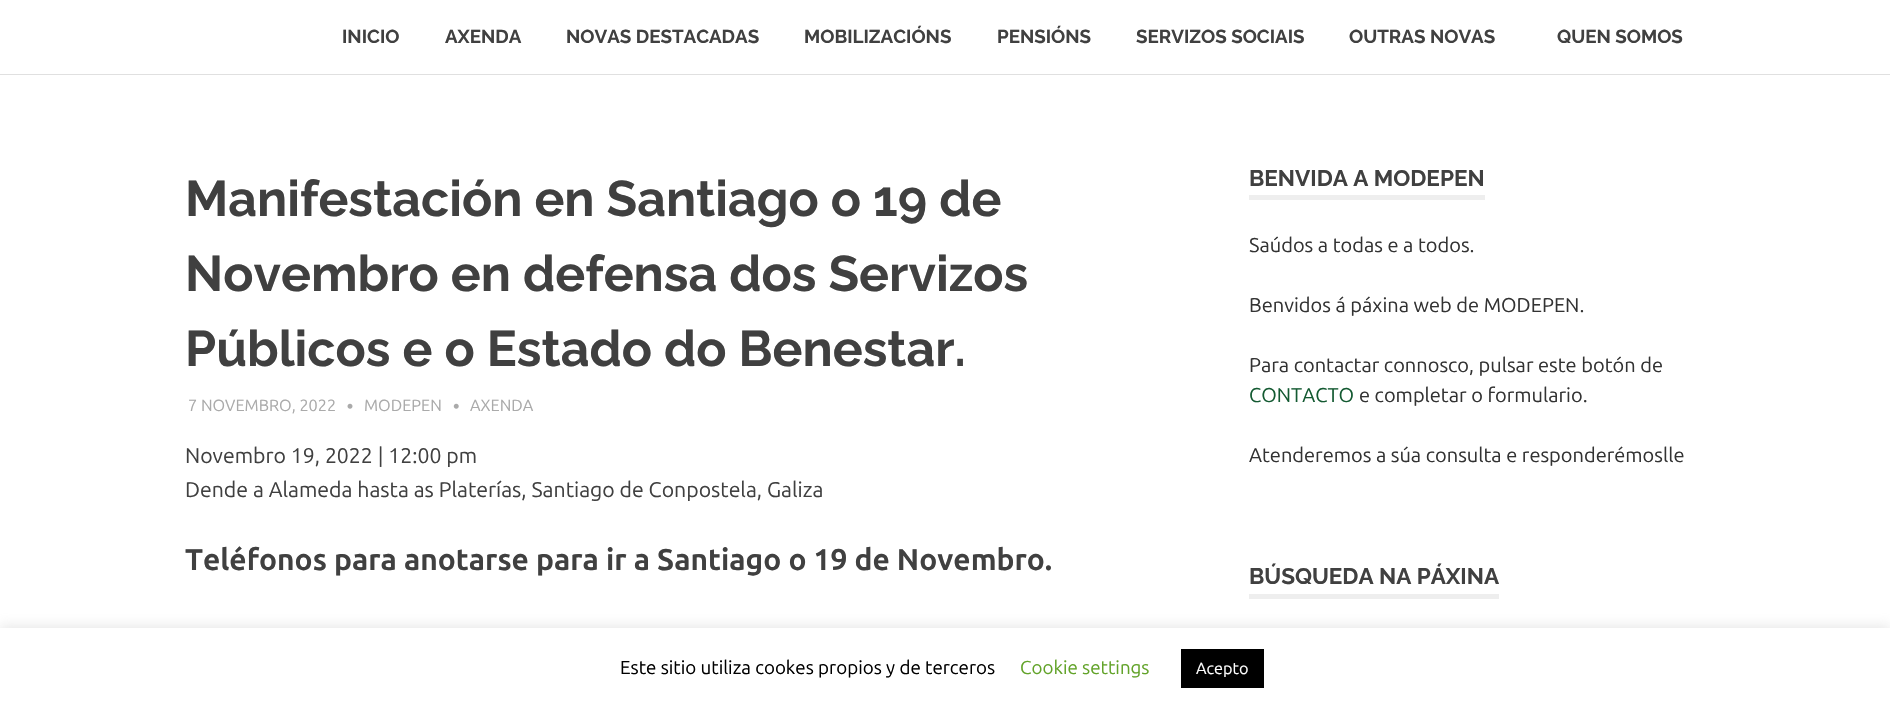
#include "include/core/SkBlurTypes.h"
#include "include/core/SkCanvas.h"
#include "include/core/SkData.h"
#include "include/core/SkFont.h"
#include "include/core/SkFontMgr.h"
#include "include/core/SkImage.h"
#include "include/core/SkMaskFilter.h"
#include "include/core/SkPaint.h"
#include "include/core/SkPathBuilder.h"
#include "include/core/SkTextBlob.h"
#include "include/effects/SkDashPathEffect.h"
#include "include/effects/SkGradientShader.h"
#include "include/utils/SkParsePath.h"

extern sk_sp<SkFontMgr> fontMgr;

void draw(SkCanvas* canvas) {
  SkPaint p;
  p.setAntiAlias(true);
  canvas->clear(SK_ColorWHITE);
  p.setColor(SkColorSetRGB(224, 224, 224));
  canvas->drawRect(SkRect::MakeLTRB(0, 74, 1890, 75), p);
  canvas->drawImageRect(SkImages::DeferredFromEncodedData(SkData::MakeFromFileName("images/1.png")), SkRect::MakeLTRB(347, 403, 353, 409), SkSamplingOptions());
  canvas->drawImageRect(SkImages::DeferredFromEncodedData(SkData::MakeFromFileName("images/2.png")), SkRect::MakeLTRB(453, 403, 459, 409), SkSamplingOptions());
  p.setColor(SkColorSetRGB(238, 238, 238));
  canvas->drawRect(SkRect::MakeLTRB(1249, 195, 1485, 200), p);
  canvas->drawRect(SkRect::MakeLTRB(1249, 594, 1499, 599), p);
  p.setColor(SkColorSetARGB(77, 172, 171, 171));
  p.setMaskFilter(SkMaskFilter::MakeBlur(kNormal_SkBlurStyle, 6));
  canvas->drawRect(SkRect::MakeLTRB(0, 626, 1890, 708), p);
  p.setMaskFilter(nullptr);
  p.setColor(SK_ColorWHITE);
  canvas->drawRect(SkRect::MakeLTRB(0, 628, 1890, 708), p);
  p.setColor(SK_ColorBLACK);
  canvas->drawRect(SkRect::MakeLTRB(1181, 649, 1264, 688), p);
  SkFont font1(fontMgr->matchFamilyStyle("Raleway", SkFontStyle::Bold()), 18.75f);
  font1.setSubpixel(true);
  p.setColor(SkColorSetRGB(64, 64, 64));
  canvas->drawString("INICIO", 342, 43, font1, p);
  canvas->drawString("AXENDA", 445, 43, font1, p);
  canvas->drawString("NOVAS DESTACADAS", 566, 43, font1, p);
  canvas->drawString("MOBILIZACIÓNS", 804, 43, font1, p);
  canvas->drawString("PENSIÓNS", 997, 43, font1, p);
  canvas->drawString("SERVIZOS SOCIAIS", 1136, 43, font1, p);
  canvas->drawString("OUTRAS NOVAS", 1349, 43, font1, p);
  canvas->drawString("QUEN SOMOS", 1557, 43, font1, p);
  SkFont font2(fontMgr->matchFamilyStyle("Raleway", SkFontStyle::Bold()), 50);
  font2.setSubpixel(true);
  canvas->drawString("Manifestación en Santiago o 19 de", 185, 216, font2, p);
  canvas->drawString("Novembro en defensa dos Servizos", 185, 291, font2, p);
  canvas->drawString("Públicos e o Estado do Benestar.", 185, 366, font2, p);
  SkFont font3(fontMgr->matchFamilyStyle("Ubuntu", SkFontStyle::Normal()), 16.25f);
  font3.setSubpixel(true);
  p.setColor(SkColorSetRGB(170, 170, 170));
  canvas->drawString("7 NOVEMBRO, 2022", 188, 411, font3, p);
  canvas->drawString("MODEPEN", 364, 411, font3, p);
  canvas->drawString("AXENDA", 470, 411, font3, p);
  SkFont font4(fontMgr->matchFamilyStyle("Ubuntu", SkFontStyle::Normal()), 21.25f);
  font4.setSubpixel(true);
  p.setColor(SkColorSetRGB(64, 64, 64));
  canvas->drawString("Novembro 19, 2022 | 12:00 pm", 185, 463, font4, p);
  canvas->drawString("Dende a Alameda hasta as Platerías, Santiago de Conpostela, Galiza", 185, 497, font4, p);
  SkFont font5(fontMgr->matchFamilyStyle("Ubuntu", SkFontStyle::Bold()), 30);
  font5.setSubpixel(true);
  canvas->drawString("Teléfonos para anotarse para ir a Santiago o 19 de Novembro.", 185, 570, font5, p);
  SkFont font6(fontMgr->matchFamilyStyle("Raleway", SkFontStyle::Bold()), 22.5f);
  font6.setSubpixel(true);
  canvas->drawString("BENVIDA A MODEPEN", 1249, 186, font6, p);
  SkFont font7(fontMgr->matchFamilyStyle("Ubuntu", SkFontStyle::Normal()), 20);
  font7.setSubpixel(true);
  p.setColor(SkColorSetRGB(51, 51, 51));
  canvas->drawString("Saúdos a todas e a todos.", 1249, 252, font7, p);
  canvas->drawString("Benvidos á páxina web de MODEPEN.", 1249, 312, font7, p);
  canvas->drawString("Para contactar connosco, pulsar este botón de", 1249, 372, font7, p);
  p.setColor(SkColorSetRGB(20, 90, 50));
  canvas->drawString("CONTACTO", 1249, 402, font7, p);
  p.setColor(SkColorSetRGB(51, 51, 51));
  canvas->drawString("e completar o formulario.", 1359, 402, font7, p);
  canvas->drawString("Atenderemos a súa consulta e responderémoslle", 1249, 462, font7, p);
  p.setColor(SkColorSetRGB(64, 64, 64));
  canvas->drawString("BÚSQUEDA NA PÁXINA", 1249, 584, font6, p);
  SkFont font8(fontMgr->matchFamilyStyle("Ubuntu", SkFontStyle::Normal()), 18.75f);
  font8.setSubpixel(true);
  p.setColor(SK_ColorBLACK);
  canvas->drawString("Este sitio utiliza cookes propios y de terceros", 620, 674, font8, p);
  p.setColor(SkColorSetRGB(98, 163, 41));
  canvas->drawString("Cookie settings", 1020, 674, font8, p);
  p.setColor(SK_ColorWHITE);
  canvas->drawString("Acepto", 1196, 674, font3, p);
}
